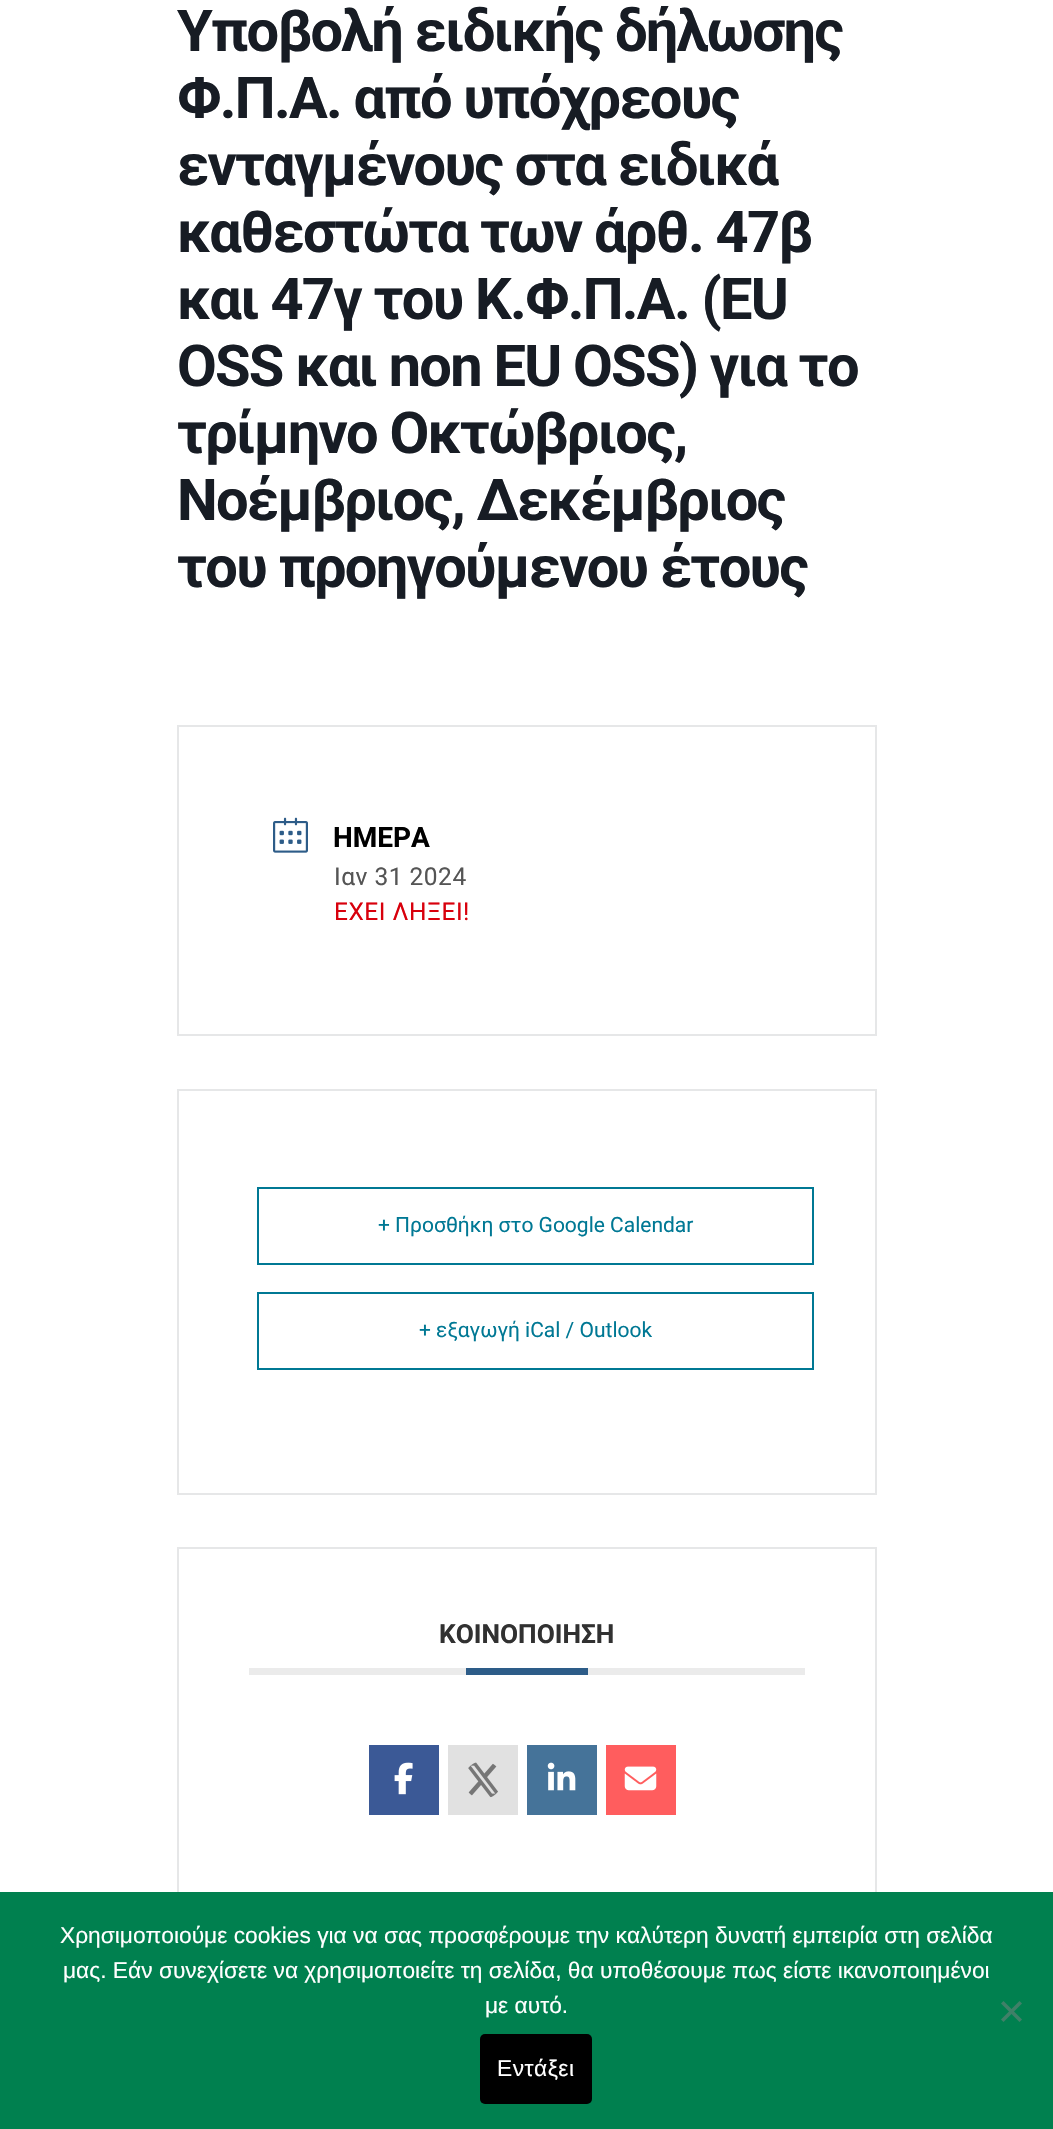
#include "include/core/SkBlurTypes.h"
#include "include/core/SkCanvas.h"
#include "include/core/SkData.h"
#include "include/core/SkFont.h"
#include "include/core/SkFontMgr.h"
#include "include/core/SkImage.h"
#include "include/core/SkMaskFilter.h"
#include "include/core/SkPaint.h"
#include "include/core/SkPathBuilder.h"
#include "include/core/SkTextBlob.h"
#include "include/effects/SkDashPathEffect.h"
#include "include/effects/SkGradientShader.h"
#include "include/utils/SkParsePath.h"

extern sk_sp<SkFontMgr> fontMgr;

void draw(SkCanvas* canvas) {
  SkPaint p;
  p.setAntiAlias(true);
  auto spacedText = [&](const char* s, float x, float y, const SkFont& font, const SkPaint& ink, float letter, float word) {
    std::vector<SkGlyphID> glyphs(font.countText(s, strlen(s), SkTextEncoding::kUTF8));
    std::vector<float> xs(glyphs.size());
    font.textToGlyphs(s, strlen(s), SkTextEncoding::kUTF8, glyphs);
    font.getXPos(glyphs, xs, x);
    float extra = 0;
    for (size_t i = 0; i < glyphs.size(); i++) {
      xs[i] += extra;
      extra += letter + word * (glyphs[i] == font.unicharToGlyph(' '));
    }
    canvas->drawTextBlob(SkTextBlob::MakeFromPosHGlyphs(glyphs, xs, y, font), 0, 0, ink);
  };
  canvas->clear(SK_ColorWHITE);
  p.setStyle(SkPaint::kStroke_Style);
  p.setStrokeWidth(2);
  p.setColor(SkColorSetRGB(230, 231, 232));
  canvas->drawRect(SkRect::MakeLTRB(178, 726, 876, 1035), p);
  canvas->drawImageRect(SkImages::DeferredFromEncodedData(SkData::MakeFromFileName("images/1.png")), SkRect::MakeLTRB(273, 817, 308, 853), SkSamplingOptions());
  canvas->drawRect(SkRect::MakeLTRB(178, 1090, 876, 1494), p);
  p.setColor(SkColorSetRGB(0, 120, 148));
  canvas->drawRect(SkRect::MakeLTRB(258, 1188, 813, 1264), p);
  canvas->drawRect(SkRect::MakeLTRB(258, 1293, 813, 1369), p);
  p.setColor(SkColorSetRGB(230, 231, 232));
  canvas->drawRect(SkRect::MakeLTRB(178, 1548, 876, 1912), p);
  p.setStyle(SkPaint::kFill_Style);
  p.setColor(SkColorSetRGB(235, 235, 235));
  canvas->drawRect(SkRect::MakeLTRB(249, 1668, 805, 1675), p);
  p.setColor(SkColorSetRGB(45, 92, 136));
  canvas->drawRect(SkRect::MakeLTRB(466, 1668, 588, 1675), p);
  p.setColor(SkColorSetRGB(59, 89, 150));
  canvas->drawRect(SkRect::MakeLTRB(369, 1745, 439, 1815), p);
  canvas->drawImageRect(SkImages::DeferredFromEncodedData(SkData::MakeFromFileName("images/2.png")), SkRect::MakeLTRB(394, 1762, 413, 1795), SkSamplingOptions());
  p.setColor(SkColorSetRGB(225, 225, 225));
  canvas->drawRect(SkRect::MakeLTRB(448, 1745, 518, 1815), p);
  canvas->drawImageRect(SkImages::DeferredFromEncodedData(SkData::MakeFromFileName("images/3.png")), SkRect::MakeLTRB(468, 1762, 498, 1798), SkSamplingOptions());
  p.setColor(SkColorSetRGB(69, 115, 153));
  canvas->drawRect(SkRect::MakeLTRB(527, 1745, 597, 1815), p);
  canvas->drawImageRect(SkImages::DeferredFromEncodedData(SkData::MakeFromFileName("images/4.png")), SkRect::MakeLTRB(547, 1762, 576, 1791), SkSamplingOptions());
  p.setColor(SkColorSetRGB(255, 93, 94));
  canvas->drawRect(SkRect::MakeLTRB(606, 1745, 676, 1815), p);
  canvas->drawImageRect(SkImages::DeferredFromEncodedData(SkData::MakeFromFileName("images/5.png")), SkRect::MakeLTRB(624, 1766, 657, 1791), SkSamplingOptions());
  p.setColor(SkColorSetRGB(0, 128, 79));
  canvas->drawRect(SkRect::MakeLTRB(0, 1892, 1053, 2129), p);
  p.setColor(SkColorSetRGB(64, 128, 104));
  canvas->drawPath(SkPathBuilder().moveTo(1019.5f, 2001).lineTo(1022, 2003.5f).lineTo(1003.5f, 2022).lineTo(1001, 2019.5f).close().detach(), p);
  canvas->drawPath(SkPathBuilder().moveTo(1001, 2003.5f).lineTo(1003.5f, 2001).lineTo(1022, 2019.5f).lineTo(1019.5f, 2022).close().detach(), p);
  p.setColor(SK_ColorBLACK);
  canvas->drawRoundRect(SkRect::MakeLTRB(480, 2034, 592, 2104), 5, 5, p);
  SkFont font1(fontMgr->matchFamilyStyle("Roboto", SkFontStyle::Bold()), 57.75f);
  font1.setSubpixel(true);
  p.setColor(SkColorSetRGB(23, 28, 36));
  spacedText("Υποβολή ειδικής δήλωσης", 177, 51, font1, p, -1.75f, 0);
  spacedText("Φ.Π.Α. από υπόχρεους", 177, 118, font1, p, -1.75f, 0);
  spacedText("ενταγμένους στα ειδικά", 177, 185, font1, p, -1.75f, 0);
  spacedText("καθεστώτα των άρθ. 47β", 177, 252, font1, p, -1.75f, 0);
  spacedText("και 47γ του Κ.Φ.Π.Α. (EU", 177, 319, font1, p, -1.75f, 0);
  spacedText("OSS και non EU OSS) για το", 177, 386, font1, p, -1.75f, 0);
  spacedText("τρίμηνο Οκτώβριος,", 177, 453, font1, p, -1.75f, 0);
  spacedText("Νοέμβριος, Δεκέμβριος", 177, 520, font1, p, -1.75f, 0);
  spacedText("του προηγούμενου έτους", 177, 587, font1, p, -1.75f, 0);
  SkFont font2(fontMgr->matchFamilyStyle("Roboto", SkFontStyle::Bold()), 28);
  font2.setSubpixel(true);
  p.setColor(SK_ColorBLACK);
  canvas->drawString("ΗΜΕΡΑ", 333, 847, font2, p);
  SkFont font3(fontMgr->matchFamilyStyle("Roboto", SkFontStyle::Normal()), 24.5f);
  font3.setSubpixel(true);
  p.setColor(SkColorSetRGB(85, 85, 85));
  spacedText("Ιαν 31 2024", 334, 885, font3, p, 0.5f, 0);
  p.setColor(SkColorSetRGB(216, 0, 12));
  spacedText("ΕΧΕΙ ΛΗΞΕΙ!", 334, 920, font3, p, 0.5f, 0);
  SkFont font4(fontMgr->matchFamilyStyle("Roboto", SkFontStyle::Normal()), 21);
  font4.setSubpixel(true);
  p.setColor(SkColorSetRGB(0, 120, 148));
  canvas->drawString("+ Προσθήκη στο Google Calendar", 378, 1232, font4, p);
  canvas->drawString("+ εξαγωγή iCal / Outlook", 419, 1337, font4, p);
  SkFont font5(fontMgr->matchFamilyStyle("Roboto", SkFontStyle::Bold()), 26.25f);
  font5.setSubpixel(true);
  p.setColor(SkColorSetRGB(49, 49, 49));
  canvas->drawString("ΚΟΙΝΟΠΟΙΗΣΗ", 439, 1643, font5, p);
  SkFont font6(fontMgr->matchFamilyStyle("Liberation Sans", SkFontStyle::Normal()), 22.75f);
  font6.setSubpixel(true);
  p.setColor(SK_ColorWHITE);
  canvas->drawString("Χρησιμοποιούμε cookies για να σας προσφέρουμε την καλύτερη δυνατή εμπειρία στη σελίδα", 60, 1943, font6, p);
  canvas->drawString("μας. Εάν συνεχίσετε να χρησιμοποιείτε τη σελίδα, θα υποθέσουμε πως είστε ικανοποιημένοι", 63, 1978, font6, p);
  canvas->drawString("με αυτό.", 485, 2013, font6, p);
  spacedText("Εντάξει", 497, 2076, font6, p, 0.5f, 0);
}
